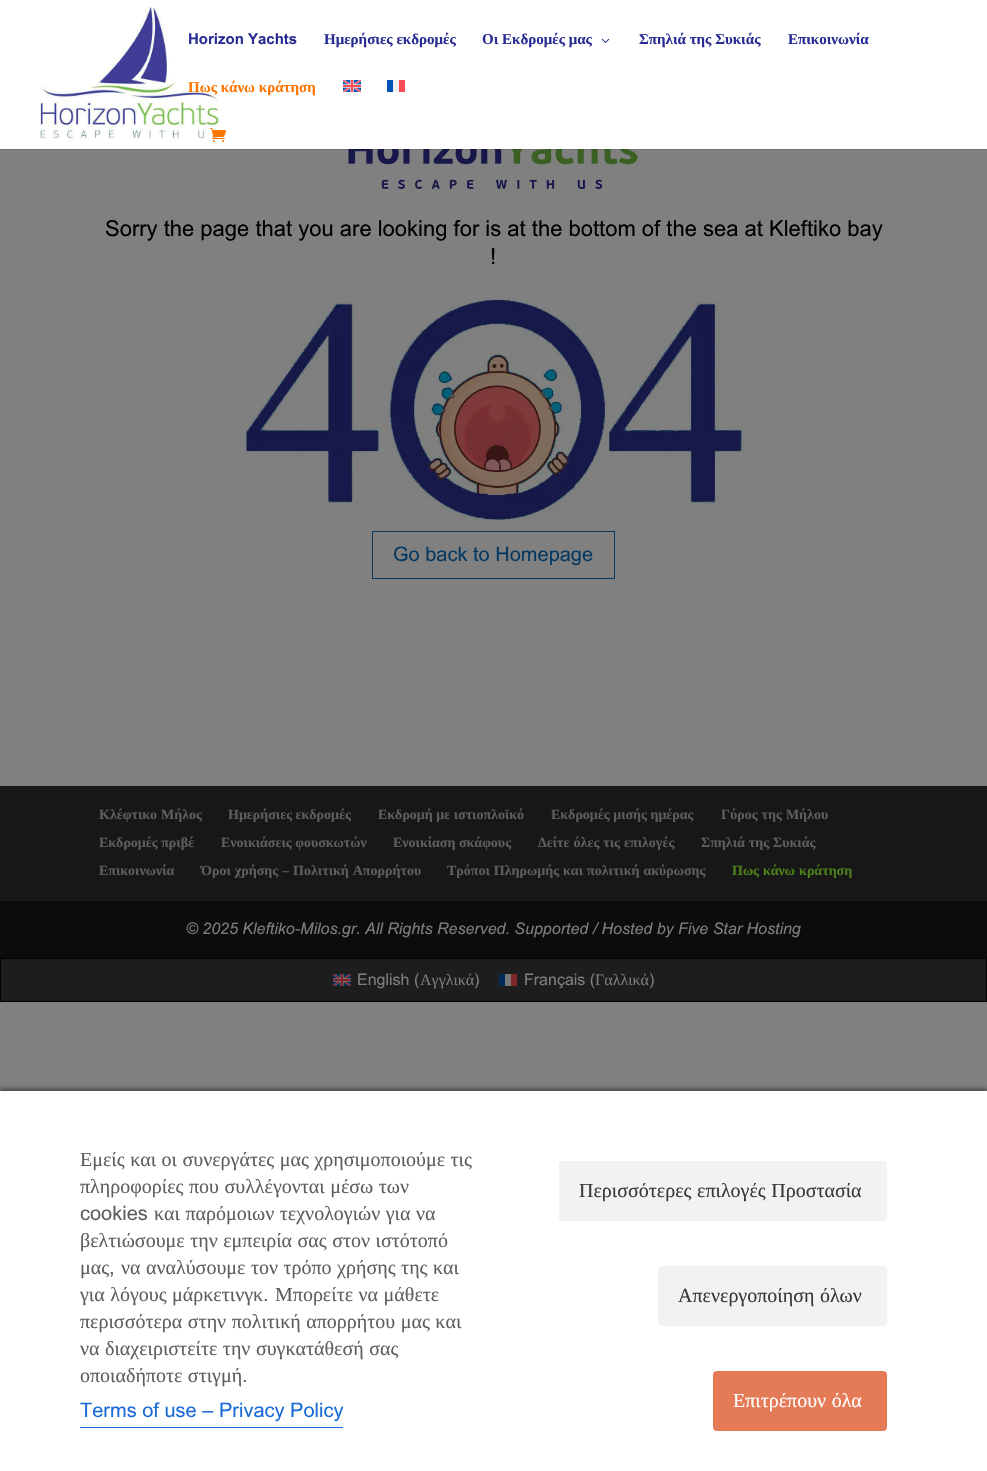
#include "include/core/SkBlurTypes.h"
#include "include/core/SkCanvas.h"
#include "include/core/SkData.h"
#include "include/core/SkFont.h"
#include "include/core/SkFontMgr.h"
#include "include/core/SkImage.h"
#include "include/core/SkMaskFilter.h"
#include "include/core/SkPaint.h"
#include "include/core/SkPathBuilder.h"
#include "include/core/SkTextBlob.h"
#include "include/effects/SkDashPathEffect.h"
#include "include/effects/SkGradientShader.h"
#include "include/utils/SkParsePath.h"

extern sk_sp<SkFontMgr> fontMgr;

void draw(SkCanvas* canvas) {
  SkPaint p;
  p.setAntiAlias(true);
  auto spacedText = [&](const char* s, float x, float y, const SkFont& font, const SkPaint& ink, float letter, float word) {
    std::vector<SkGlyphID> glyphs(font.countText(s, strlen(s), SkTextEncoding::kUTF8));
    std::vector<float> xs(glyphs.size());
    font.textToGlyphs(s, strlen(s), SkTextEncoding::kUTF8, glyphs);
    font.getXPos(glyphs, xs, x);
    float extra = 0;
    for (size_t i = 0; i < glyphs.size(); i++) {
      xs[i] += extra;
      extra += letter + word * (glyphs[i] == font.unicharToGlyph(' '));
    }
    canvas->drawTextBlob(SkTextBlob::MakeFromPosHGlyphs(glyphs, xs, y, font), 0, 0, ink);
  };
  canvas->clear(SkColorSetRGB(128, 128, 128));
  canvas->drawImageRect(SkImages::DeferredFromEncodedData(SkData::MakeFromFileName("images/5.png")), SkRect::MakeLTRB(348, 149, 638, 190), SkSamplingOptions());
  p.setColor(SkColorSetARGB(26, 0, 0, 0));
  canvas->drawRect(SkRect::MakeLTRB(0, 149, 987, 150), p);
  p.setColor(SK_ColorWHITE);
  canvas->drawRect(SkRect::MakeLTRB(0, 0, 987, 149), p);
  canvas->drawImageRect(SkImages::DeferredFromEncodedData(SkData::MakeFromFileName("images/1.png")), SkRect::MakeLTRB(40, 7, 222, 139), SkSamplingOptions());
  canvas->drawImageRect(SkImages::DeferredFromEncodedData(SkData::MakeFromFileName("images/2.png")), SkRect::MakeLTRB(601, 38, 610, 43), SkSamplingOptions());
  canvas->drawImageRect(SkImages::DeferredFromEncodedData(SkData::MakeFromFileName("images/3.png")), SkRect::MakeLTRB(343, 80, 361, 92), SkSamplingOptions());
  p.setColor(SkColorSetRGB(0, 82, 180));
  canvas->drawRect(SkRect::MakeLTRB(387, 80, 393, 92), p);
  p.setColor(SkColorSetRGB(240, 240, 240));
  canvas->drawRect(SkRect::MakeLTRB(393, 80, 399, 92), p);
  p.setColor(SkColorSetRGB(255, 75, 85));
  canvas->drawRect(SkRect::MakeLTRB(399, 80, 405, 92), p);
  canvas->drawImageRect(SkImages::DeferredFromEncodedData(SkData::MakeFromFileName("images/4.png")), SkRect::MakeLTRB(210, 128, 226, 142), SkSamplingOptions());
  canvas->drawImageRect(SkImages::DeferredFromEncodedData(SkData::MakeFromFileName("images/6.png")), SkRect::MakeLTRB(245, 297, 751, 522), SkSamplingOptions());
  p.setStyle(SkPaint::kStroke_Style);
  p.setStrokeWidth(1);
  p.setColor(SkColorSetRGB(6, 57, 98));
  canvas->drawRect(SkRect::MakeLTRB(372.5f, 531.5f, 614.5f, 578.5f), p);
  p.setStyle(SkPaint::kFill_Style);
  p.setColor(SkColorSetRGB(23, 23, 23));
  canvas->drawRect(SkRect::MakeLTRB(0, 786, 987, 901), p);
  p.setColor(SkColorSetRGB(12, 12, 12));
  canvas->drawRect(SkRect::MakeLTRB(0, 901, 987, 958), p);
  p.setColor(SkColorSetRGB(29, 29, 29));
  canvas->drawRect(SkRect::MakeLTRB(0.5f, 958.5f, 986.5f, 1001.5f), p);
  p.setStyle(SkPaint::kStroke_Style);
  p.setColor(SK_ColorBLACK);
  canvas->drawRect(SkRect::MakeLTRB(0.5f, 958.5f, 986.5f, 1001.5f), p);
  canvas->drawImageRect(SkImages::DeferredFromEncodedData(SkData::MakeFromFileName("images/7.png")), SkRect::MakeLTRB(333, 974, 351, 986), SkSamplingOptions());
  p.setStyle(SkPaint::kFill_Style);
  p.setColor(SkColorSetRGB(0, 41, 90));
  canvas->drawRect(SkRect::MakeLTRB(499, 974, 505, 986), p);
  p.setColor(SkColorSetRGB(120, 120, 120));
  canvas->drawRect(SkRect::MakeLTRB(505, 974, 511, 986), p);
  p.setColor(SkColorSetRGB(128, 38, 43));
  canvas->drawRect(SkRect::MakeLTRB(511, 974, 517, 986), p);
  p.setColor(SkColorSetARGB(128, 0, 0, 0));
  p.setMaskFilter(SkMaskFilter::MakeBlur(kNormal_SkBlurStyle, 2.5f));
  canvas->drawRect(SkRect::MakeLTRB(0, 1089, 987, 1469), p);
  p.setMaskFilter(nullptr);
  p.setColor(SK_ColorWHITE);
  canvas->drawRect(SkRect::MakeLTRB(0, 1091, 987, 1471), p);
  p.setColor(SkColorSetRGB(26, 107, 215));
  canvas->drawRect(SkRect::MakeLTRB(80, 1427, 343, 1428), p);
  p.setColor(SkColorSetRGB(242, 242, 242));
  canvas->drawRoundRect(SkRect::MakeLTRB(559, 1161, 887, 1221), 4, 4, p);
  canvas->drawRoundRect(SkRect::MakeLTRB(658, 1266, 887, 1326), 4, 4, p);
  p.setColor(SkColorSetRGB(228, 122, 86));
  canvas->drawRoundRect(SkRect::MakeLTRB(713, 1371, 887, 1431), 4, 4, p);
  SkFont font1(fontMgr->matchFamilyStyle("Arial", SkFontStyle::Bold()), 15);
  font1.setSubpixel(true);
  p.setColor(SkColorSetRGB(41, 45, 147));
  canvas->drawString("Horizon Yachts", 188, 44, font1, p);
  SkFont font2(fontMgr->matchFamilyStyle("Liberation Serif", SkFontStyle::Bold()), 15);
  font2.setSubpixel(true);
  canvas->drawString("Ημερήσιες εκδρομές", 324, 44, font2, p);
  canvas->drawString("Οι Εκδρομές μας", 482, 44, font2, p);
  canvas->drawString("Σπηλιά της Συκιάς", 639, 44, font2, p);
  canvas->drawString("Επικοινωνία", 788, 44, font2, p);
  p.setColor(SkColorSetRGB(255, 118, 0));
  canvas->drawString("Πως κάνω κράτηση", 188, 92, font2, p);
  SkFont font3(fontMgr->matchFamilyStyle("Arial", SkFontStyle::Normal()), 22);
  font3.setSubpixel(true);
  p.setColor(SK_ColorBLACK);
  canvas->drawString("Sorry the page that you are looking for is at the bottom of the sea at Kleftiko bay", 105, 236, font3, p);
  canvas->drawString("!", 490, 264, font3, p);
  SkFont font4(fontMgr->matchFamilyStyle("Arial", SkFontStyle::Normal()), 20);
  font4.setSubpixel(true);
  p.setColor(SkColorSetRGB(6, 57, 98));
  canvas->drawString("Go back to Homepage", 393, 561, font4, p);
  SkFont font5(fontMgr->matchFamilyStyle("Liberation Serif", SkFontStyle::Bold()), 14);
  font5.setSubpixel(true);
  p.setColor(SkColorSetRGB(94, 94, 94));
  spacedText("Κλέφτικο Μήλος", 99, 819, font5, p, 0, 0.5f);
  canvas->drawString("Ημερήσιες εκδρομές", 228, 819, font5, p);
  canvas->drawString("Εκδρομή με ιστιοπλοϊκό", 378, 819, font5, p);
  canvas->drawString("Εκδρομές μισής ημέρας", 551, 819, font5, p);
  spacedText("Γύρος της Μήλου", 721, 819, font5, p, 0, 0.5f);
  canvas->drawString("Εκδρομές πριβέ", 99, 847, font5, p);
  canvas->drawString("Ενοικιάσεις φουσκωτών", 221, 847, font5, p);
  canvas->drawString("Ενοικίαση σκάφους", 393, 847, font5, p);
  spacedText("Δείτε όλες τις επιλογές", 538, 847, font5, p, 0, 0.5f);
  spacedText("Σπηλιά της Συκιάς", 701, 847, font5, p, 0, 0.5f);
  canvas->drawString("Επικοινωνία", 99, 875, font5, p);
  spacedText("Όροι χρήσης – Πολιτική Απορρήτου", 201, 875, font5, p, 0, 0.5f);
  spacedText("Τρόποι Πληρωμής και πολιτική ακύρωσης", 447, 875, font5, p, 0, 0.5f);
  p.setColor(SkColorSetRGB(77, 128, 26));
  spacedText("Πως κάνω κράτηση", 732, 875, font5, p, 0, 0.5f);
  SkFont font6(fontMgr->matchFamilyStyle("Arial", SkFontStyle::Italic()), 16);
  font6.setSubpixel(true);
  p.setColor(SkColorSetRGB(125, 125, 125));
  canvas->drawString("© 2025 Kleftiko-Milos.gr. All Rights Reserved. Supported / Hosted by Five Star Hosting", 186, 934, font6, p);
  SkFont font7(fontMgr->matchFamilyStyle("Arial", SkFontStyle::Normal()), 16);
  font7.setSubpixel(true);
  canvas->drawString("English (", 357, 985, font7, p);
  SkFont font8(fontMgr->matchFamilyStyle("Liberation Serif", SkFontStyle::Normal()), 16);
  font8.setSubpixel(true);
  canvas->drawString("Αγγλικά", 420, 985, font8, p);
  canvas->drawString(")", 474, 985, font7, p);
  canvas->drawString("Français (", 524, 985, font7, p);
  canvas->drawString("Γαλλικά", 595, 985, font8, p);
  canvas->drawString(")", 649, 985, font7, p);
  SkFont font9(fontMgr->matchFamilyStyle("Liberation Serif", SkFontStyle::Normal()), 20);
  font9.setSubpixel(true);
  p.setColor(SkColorSetRGB(94, 94, 94));
  spacedText("Εμείς και οι συνεργάτες μας χρησιμοποιούμε τις", 80, 1166, font9, p, 0, 0.5f);
  spacedText("πληροφορίες που συλλέγονται μέσω των", 80, 1193, font9, p, 0, 0.5f);
  canvas->drawString("cookies", 80, 1220, font4, p);
  spacedText("και παρόμοιων τεχνολογιών για να", 154, 1220, font9, p, 0, 0.5f);
  spacedText("βελτιώσουμε την εμπειρία σας στον ιστότοπό", 80, 1247, font9, p, 0, 0.5f);
  canvas->drawString("μας", 80, 1274, font9, p);
  canvas->drawString(",", 109, 1274, font4, p);
  spacedText("να αναλύσουμε τον τρόπο χρήσης της και", 121, 1274, font9, p, 0, 0.5f);
  spacedText("για λόγους μάρκετινγκ", 80, 1301, font9, p, 0, 0.5f);
  canvas->drawString(".", 263, 1301, font4, p);
  spacedText("Μπορείτε να μάθετε", 275, 1301, font9, p, 0, 0.5f);
  spacedText("περισσότερα στην πολιτική απορρήτου μας και", 80, 1328, font9, p, 0, 0.5f);
  spacedText("να διαχειριστείτε την συγκατάθεσή σας", 80, 1355, font9, p, 0, 0.5f);
  spacedText("οποιαδήποτε στιγμή", 80, 1382, font9, p, 0, 0.5f);
  canvas->drawString(".", 242, 1382, font4, p);
  p.setColor(SkColorSetRGB(26, 107, 215));
  canvas->drawString("Terms of use – Privacy Policy", 80, 1417, font4, p);
  p.setColor(SkColorSetRGB(55, 55, 55));
  spacedText("Περισσότερες επιλογές Προστασία", 579, 1197, font9, p, 0, 0.5f);
  spacedText("Απενεργοποίηση όλων", 678, 1302, font9, p, 0, 0.5f);
  p.setColor(SK_ColorWHITE);
  spacedText("Επιτρέπουν όλα", 733, 1407, font9, p, 0, 0.5f);
}
